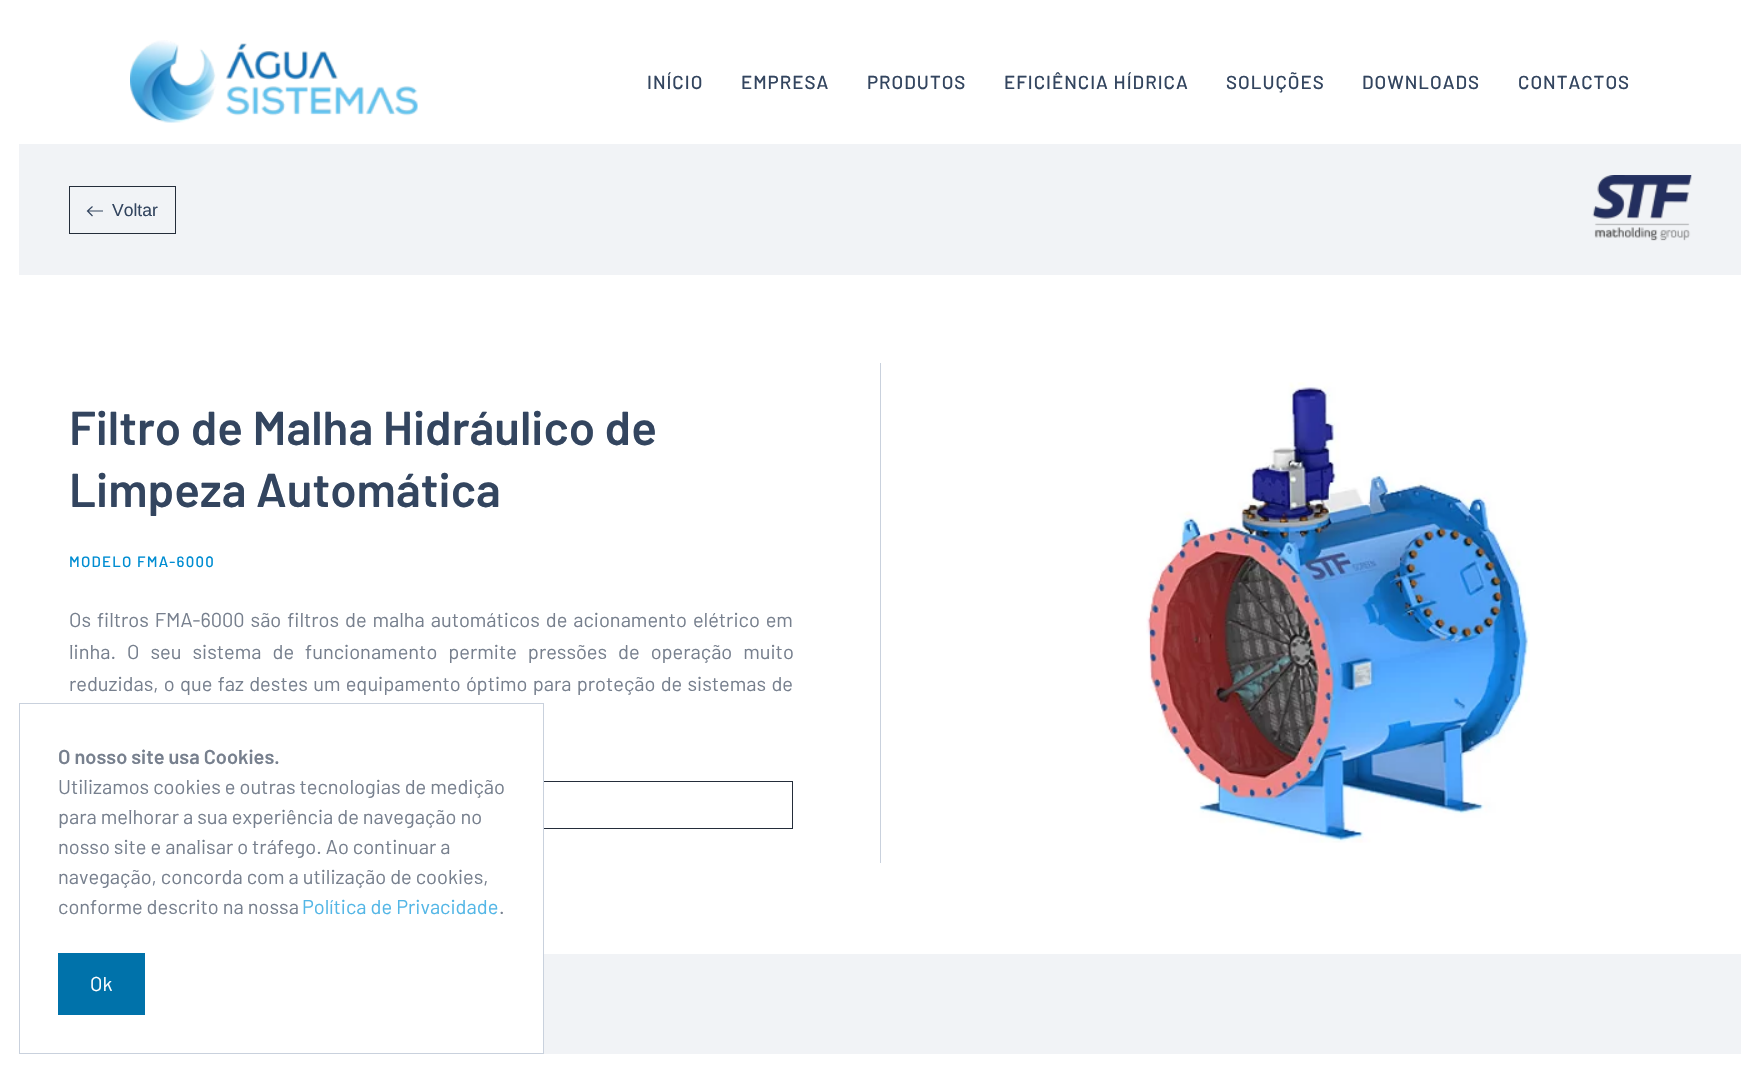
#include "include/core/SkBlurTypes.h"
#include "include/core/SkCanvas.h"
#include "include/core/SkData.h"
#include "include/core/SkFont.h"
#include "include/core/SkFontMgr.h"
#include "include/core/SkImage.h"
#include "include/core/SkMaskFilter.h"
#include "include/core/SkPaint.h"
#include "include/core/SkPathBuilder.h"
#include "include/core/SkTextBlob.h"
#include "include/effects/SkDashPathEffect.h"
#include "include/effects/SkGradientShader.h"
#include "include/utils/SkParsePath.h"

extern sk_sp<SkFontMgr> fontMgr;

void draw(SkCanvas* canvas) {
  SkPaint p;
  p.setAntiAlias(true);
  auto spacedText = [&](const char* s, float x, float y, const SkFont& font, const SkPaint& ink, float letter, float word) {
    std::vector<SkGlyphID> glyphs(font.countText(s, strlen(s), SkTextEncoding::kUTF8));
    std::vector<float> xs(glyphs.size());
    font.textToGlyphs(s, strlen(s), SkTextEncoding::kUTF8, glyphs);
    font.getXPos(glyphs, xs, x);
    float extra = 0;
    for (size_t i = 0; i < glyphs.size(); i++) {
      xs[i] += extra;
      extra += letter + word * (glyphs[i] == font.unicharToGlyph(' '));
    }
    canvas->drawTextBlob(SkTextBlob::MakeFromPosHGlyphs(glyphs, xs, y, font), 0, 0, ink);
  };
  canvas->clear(SK_ColorWHITE);
  canvas->drawImageRect(SkImages::DeferredFromEncodedData(SkData::MakeFromFileName("images/1.png")), SkRect::MakeLTRB(130, 40, 418, 123), SkSamplingOptions());
  p.setColor(SkColorSetRGB(241, 243, 246));
  canvas->drawRect(SkRect::MakeLTRB(19, 144, 1741, 275), p);
  p.setStyle(SkPaint::kStroke_Style);
  p.setStrokeWidth(1);
  p.setColor(SkColorSetRGB(36, 45, 58));
  canvas->drawRect(SkRect::MakeLTRB(69.5f, 186.5f, 175.5f, 233.5f), p);
  p.setStrokeWidth(1.2f);
  p.setColor(SkColorSetRGB(51, 69, 95));
  canvas->drawPath(SkPathBuilder().moveTo(103, 211).lineTo(88, 211).moveTo(92.5f, 206.5f).lineTo(87.5f, 211).lineTo(92.5f, 216).detach(), p);
  canvas->drawImageRect(SkImages::DeferredFromEncodedData(SkData::MakeFromFileName("images/2.png")), SkRect::MakeLTRB(1592, 175, 1692, 241), SkSamplingOptions());
  p.setStrokeWidth(1);
  p.setColor(SkColorSetRGB(36, 45, 58));
  canvas->drawRect(SkRect::MakeLTRB(69.5f, 781.5f, 792.5f, 828.5f), p);
  p.setStyle(SkPaint::kFill_Style);
  p.setColor(SkColorSetRGB(201, 209, 221));
  canvas->drawRect(SkRect::MakeLTRB(880, 363, 881, 863), p);
  canvas->drawImageRect(SkImages::DeferredFromEncodedData(SkData::MakeFromFileName("images/3.png")), SkRect::MakeLTRB(1146, 382, 1530, 843), SkSamplingOptions());
  p.setColor(SkColorSetRGB(241, 243, 246));
  canvas->drawRect(SkRect::MakeLTRB(544, 954, 1741, 1054), p);
  p.setColor(SK_ColorWHITE);
  canvas->drawRect(SkRect::MakeLTRB(69, 781, 543, 829), p);
  p.setStyle(SkPaint::kStroke_Style);
  p.setColor(SkColorSetRGB(201, 209, 221));
  canvas->drawRect(SkRect::MakeLTRB(19.5f, 703.5f, 543.5f, 1053.5f), p);
  p.setStyle(SkPaint::kFill_Style);
  p.setColor(SkColorSetRGB(0, 114, 170));
  canvas->drawRect(SkRect::MakeLTRB(58, 953, 145, 1015), p);
  SkFont font1(fontMgr->matchFamilyStyle("Barlow", SkFontStyle(500, SkFontStyle::kNormal_Width, SkFontStyle::kUpright_Slant)), 18.75f);
  font1.setSubpixel(true);
  p.setColor(SkColorSetRGB(51, 69, 95));
  spacedText("INÍCIO", 647, 89, font1, p, 1, 0);
  spacedText("EMPRESA", 741, 89, font1, p, 1, 0);
  spacedText("PRODUTOS", 867, 89, font1, p, 1, 0);
  spacedText("EFICIÊNCIA HÍDRICA", 1004, 89, font1, p, 1, 0);
  spacedText("SOLUÇÕES", 1226, 89, font1, p, 1, 0);
  spacedText("DOWNLOADS", 1362, 89, font1, p, 1, 0);
  spacedText("CONTACTOS", 1518, 89, font1, p, 1, 0);
  SkFont font2(fontMgr->matchFamilyStyle("Liberation Sans", SkFontStyle::Normal()), 17.5f);
  font2.setSubpixel(true);
  canvas->drawString("Voltar", 112, 216, font2, p);
  SkFont font3(fontMgr->matchFamilyStyle("Barlow", SkFontStyle(600, SkFontStyle::kNormal_Width, SkFontStyle::kUpright_Slant)), 47.5f);
  font3.setSubpixel(true);
  canvas->drawString("Filtro de Malha Hidráulico de", 69, 445, font3, p);
  canvas->drawString("Limpeza Automática", 69, 507, font3, p);
  SkFont font4(fontMgr->matchFamilyStyle("Barlow", SkFontStyle(500, SkFontStyle::kNormal_Width, SkFontStyle::kUpright_Slant)), 15);
  font4.setSubpixel(true);
  p.setColor(SkColorSetRGB(0, 141, 210));
  spacedText("MODELO FMA-6000", 69, 567, font4, p, 1.25f, 0);
  SkFont font5(fontMgr->matchFamilyStyle("Barlow", SkFontStyle::Normal()), 20);
  font5.setSubpixel(true);
  p.setColor(SkColorSetRGB(119, 128, 142));
  spacedText("Os filtros FMA-6000 são filtros de malha automáticos de acionamento elétrico em", 69, 627, font5, p, 0, 1.9f);
  spacedText("linha. O seu sistema de funcionamento permite pressões de operação muito", 69, 659, font5, p, 0, 7);
  spacedText("reduzidas, o que faz destes um equipamento óptimo para proteção de sistemas de", 69, 691, font5, p, 0, 1.25f);
  SkFont font6(fontMgr->matchFamilyStyle("Barlow", SkFontStyle(600, SkFontStyle::kNormal_Width, SkFontStyle::kUpright_Slant)), 20);
  font6.setSubpixel(true);
  canvas->drawString("O nosso site usa Cookies.", 58, 764, font6, p);
  canvas->drawString("Utilizamos cookies e outras tecnologias de medição", 58, 794, font5, p);
  canvas->drawString("para melhorar a sua experiência de navegação no", 58, 824, font5, p);
  canvas->drawString("nosso site e analisar o tráfego. Ao continuar a", 58, 854, font5, p);
  canvas->drawString("navegação, concorda com a utilização de cookies,", 58, 884, font5, p);
  canvas->drawString("conforme descrito na nossa", 58, 914, font5, p);
  p.setColor(SkColorSetRGB(83, 182, 230));
  canvas->drawString("Política de Privacidade", 302, 914, font5, p);
  p.setColor(SkColorSetRGB(119, 128, 142));
  canvas->drawString(".", 499, 914, font5, p);
  p.setColor(SK_ColorWHITE);
  canvas->drawString("Ok", 90, 991, font5, p);
}
